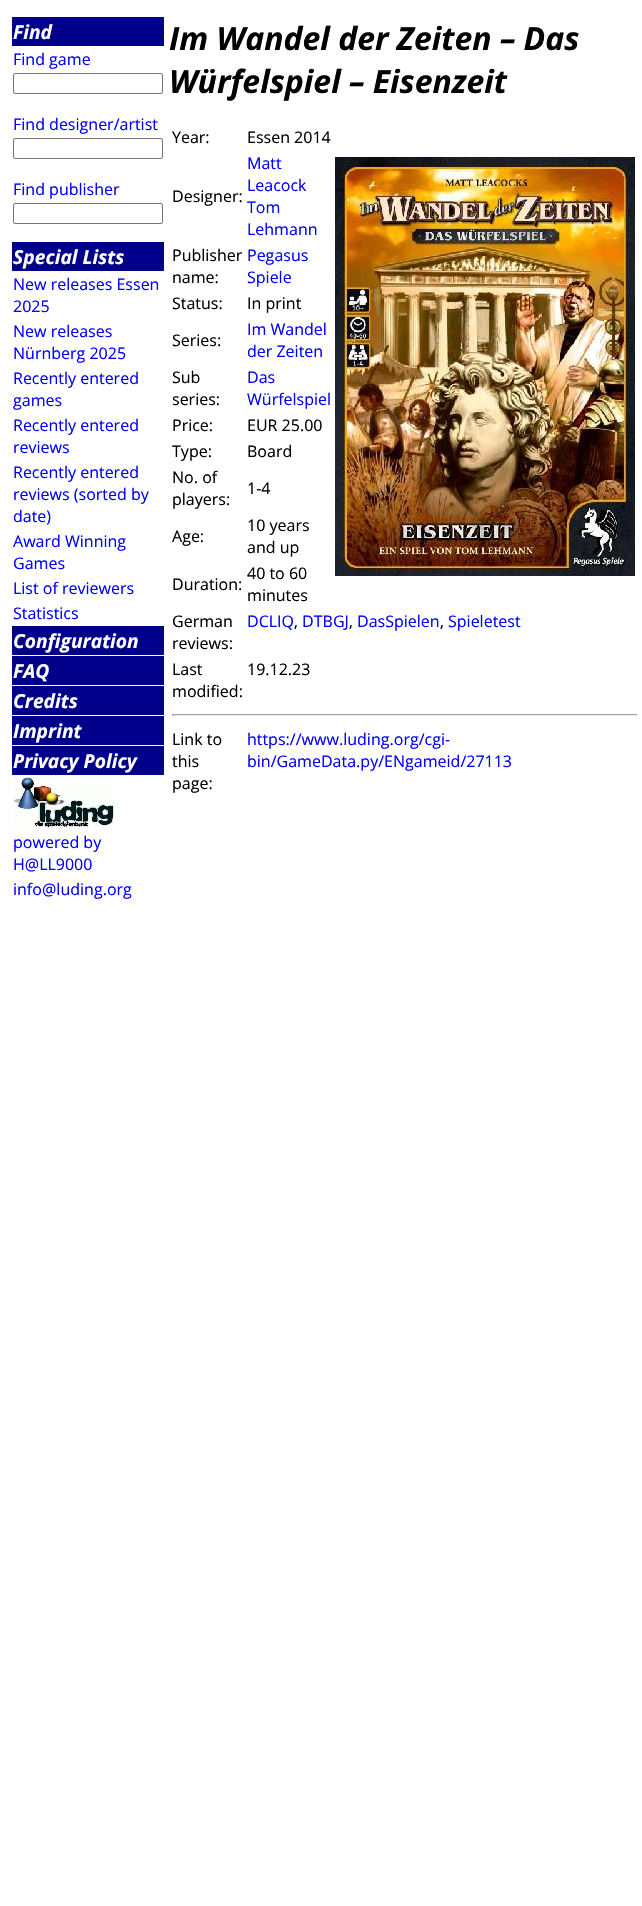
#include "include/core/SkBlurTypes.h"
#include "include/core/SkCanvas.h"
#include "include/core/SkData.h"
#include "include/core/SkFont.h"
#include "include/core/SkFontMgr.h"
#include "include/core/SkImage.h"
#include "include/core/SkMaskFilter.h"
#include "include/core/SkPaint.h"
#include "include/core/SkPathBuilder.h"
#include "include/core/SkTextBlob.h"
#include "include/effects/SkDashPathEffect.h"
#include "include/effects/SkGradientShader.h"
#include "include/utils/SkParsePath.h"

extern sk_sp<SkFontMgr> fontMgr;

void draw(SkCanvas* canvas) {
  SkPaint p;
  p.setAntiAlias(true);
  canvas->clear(SK_ColorWHITE);
  p.setColor(SkColorSetRGB(0, 0, 139));
  canvas->drawRect(SkRect::MakeLTRB(12, 17, 164, 46), p);
  p.setStyle(SkPaint::kStroke_Style);
  p.setStrokeWidth(1);
  p.setColor(SkColorSetRGB(118, 118, 118));
  canvas->drawRoundRect(SkRect::MakeLTRB(13.5f, 73.5f, 162.5f, 93.5f), 1.5f, 1.5f, p);
  canvas->drawRoundRect(SkRect::MakeLTRB(13.5f, 138.5f, 162.5f, 158.5f), 1.5f, 1.5f, p);
  canvas->drawRoundRect(SkRect::MakeLTRB(13.5f, 203.5f, 162.5f, 223.5f), 1.5f, 1.5f, p);
  p.setStyle(SkPaint::kFill_Style);
  p.setColor(SkColorSetRGB(0, 0, 139));
  canvas->drawRect(SkRect::MakeLTRB(12, 242, 164, 271), p);
  canvas->drawRect(SkRect::MakeLTRB(12, 626, 164, 655), p);
  canvas->drawRect(SkRect::MakeLTRB(12, 656, 164, 685), p);
  canvas->drawRect(SkRect::MakeLTRB(12, 686, 164, 715), p);
  canvas->drawRect(SkRect::MakeLTRB(12, 716, 164, 745), p);
  canvas->drawRect(SkRect::MakeLTRB(12, 746, 164, 775), p);
  canvas->drawImageRect(SkImages::DeferredFromEncodedData(SkData::MakeFromFileName("images/1.png")), SkRect::MakeLTRB(13, 777, 114, 828), SkSamplingOptions());
  canvas->drawImageRect(SkImages::DeferredFromEncodedData(SkData::MakeFromFileName("images/2.png")), SkRect::MakeLTRB(335, 157, 635, 576), SkSamplingOptions());
  p.setColor(SkColorSetRGB(159, 159, 159));
  canvas->drawRect(SkRect::MakeLTRB(172, 714, 638, 715), p);
  p.setColor(SkColorSetRGB(238, 238, 238));
  canvas->drawRect(SkRect::MakeLTRB(637, 714, 638, 716), p);
  canvas->drawRect(SkRect::MakeLTRB(172, 715, 638, 716), p);
  p.setColor(SkColorSetRGB(159, 159, 159));
  canvas->drawRect(SkRect::MakeLTRB(172, 714, 173, 716), p);
  SkFont font1(fontMgr->matchFamilyStyle("Open Sans", SkFontStyle::BoldItalic()), 19.25f);
  font1.setSubpixel(true);
  p.setColor(SK_ColorWHITE);
  canvas->drawString("Find", 13, 39, font1, p);
  SkFont font2(fontMgr->matchFamilyStyle("Open Sans", SkFontStyle::Normal()), 16);
  font2.setSubpixel(true);
  p.setColor(SkColorSetRGB(0, 0, 255));
  canvas->drawString("Find game", 13, 65, font2, p);
  canvas->drawString("Find designer/artist", 13, 130, font2, p);
  canvas->drawString("Find publisher", 13, 195, font2, p);
  p.setColor(SK_ColorWHITE);
  canvas->drawString("Special Lists", 13, 264, font1, p);
  p.setColor(SkColorSetRGB(0, 0, 255));
  canvas->drawString("New releases Essen", 13, 290, font2, p);
  canvas->drawString("2025", 13, 312, font2, p);
  canvas->drawString("New releases", 13, 337, font2, p);
  canvas->drawString("Nürnberg 2025", 13, 359, font2, p);
  canvas->drawString("Recently entered", 13, 384, font2, p);
  canvas->drawString("games", 13, 406, font2, p);
  canvas->drawString("Recently entered", 13, 431, font2, p);
  canvas->drawString("reviews", 13, 453, font2, p);
  canvas->drawString("Recently entered", 13, 478, font2, p);
  canvas->drawString("reviews (sorted by", 13, 500, font2, p);
  canvas->drawString("date)", 13, 522, font2, p);
  canvas->drawString("Award Winning", 13, 547, font2, p);
  canvas->drawString("Games", 13, 569, font2, p);
  canvas->drawString("List of reviewers", 13, 594, font2, p);
  canvas->drawString("Statistics", 13, 619, font2, p);
  p.setColor(SK_ColorWHITE);
  canvas->drawString("Configuration", 13, 648, font1, p);
  canvas->drawString("FAQ", 13, 678, font1, p);
  canvas->drawString("Credits", 13, 708, font1, p);
  canvas->drawString("Imprint", 13, 738, font1, p);
  canvas->drawString("Privacy Policy", 13, 768, font1, p);
  p.setColor(SkColorSetRGB(0, 0, 255));
  canvas->drawString("powered by", 13, 848, font2, p);
  canvas->drawString("H@LL9000", 13, 870, font2, p);
  canvas->drawString("info@luding.org", 13, 895, font2, p);
  SkFont font3(fontMgr->matchFamilyStyle("Open Sans", SkFontStyle::BoldItalic()), 32);
  font3.setSubpixel(true);
  p.setColor(SK_ColorBLACK);
  canvas->drawString("Im Wandel der Zeiten – Das", 169, 50, font3, p);
  canvas->drawString("Würfelspiel – Eisenzeit", 169, 93, font3, p);
  canvas->drawString("Year:", 172, 143, font2, p);
  canvas->drawString("Essen 2014", 247, 143, font2, p);
  canvas->drawString("Designer:", 172, 202, font2, p);
  p.setColor(SkColorSetRGB(0, 0, 255));
  canvas->drawString("Matt", 247, 169, font2, p);
  canvas->drawString("Leacock", 247, 191, font2, p);
  canvas->drawString("Tom", 247, 213, font2, p);
  canvas->drawString("Lehmann", 247, 235, font2, p);
  p.setColor(SK_ColorBLACK);
  canvas->drawString("Publisher", 172, 261, font2, p);
  canvas->drawString("name:", 172, 283, font2, p);
  p.setColor(SkColorSetRGB(0, 0, 255));
  canvas->drawString("Pegasus", 247, 261, font2, p);
  canvas->drawString("Spiele", 247, 283, font2, p);
  p.setColor(SK_ColorBLACK);
  canvas->drawString("Status:", 172, 309, font2, p);
  canvas->drawString("In print", 247, 309, font2, p);
  canvas->drawString("Series:", 172, 346, font2, p);
  p.setColor(SkColorSetRGB(0, 0, 255));
  canvas->drawString("Im Wandel", 247, 335, font2, p);
  canvas->drawString("der Zeiten", 247, 357, font2, p);
  p.setColor(SK_ColorBLACK);
  canvas->drawString("Sub", 172, 383, font2, p);
  canvas->drawString("series:", 172, 405, font2, p);
  p.setColor(SkColorSetRGB(0, 0, 255));
  canvas->drawString("Das", 247, 383, font2, p);
  canvas->drawString("Würfelspiel", 247, 405, font2, p);
  p.setColor(SK_ColorBLACK);
  canvas->drawString("Price:", 172, 431, font2, p);
  canvas->drawString("EUR 25.00", 247, 431, font2, p);
  canvas->drawString("Type:", 172, 457, font2, p);
  canvas->drawString("Board", 247, 457, font2, p);
  canvas->drawString("No. of", 172, 483, font2, p);
  canvas->drawString("players:", 172, 505, font2, p);
  canvas->drawString("1-4", 247, 494, font2, p);
  canvas->drawString("Age:", 172, 542, font2, p);
  canvas->drawString("10 years", 247, 531, font2, p);
  canvas->drawString("and up", 247, 553, font2, p);
  canvas->drawString("Duration:", 172, 590, font2, p);
  canvas->drawString("40 to 60", 247, 579, font2, p);
  canvas->drawString("minutes", 247, 601, font2, p);
  canvas->drawString("German", 172, 627, font2, p);
  canvas->drawString("reviews:", 172, 649, font2, p);
  p.setColor(SkColorSetRGB(0, 0, 255));
  canvas->drawString("DCLIQ", 247, 627, font2, p);
  p.setColor(SK_ColorBLACK);
  canvas->drawString(",", 294, 627, font2, p);
  p.setColor(SkColorSetRGB(0, 0, 255));
  canvas->drawString("DTBGJ", 302, 627, font2, p);
  p.setColor(SK_ColorBLACK);
  canvas->drawString(",", 349, 627, font2, p);
  p.setColor(SkColorSetRGB(0, 0, 255));
  canvas->drawString("DasSpielen", 357, 627, font2, p);
  p.setColor(SK_ColorBLACK);
  canvas->drawString(",", 440, 627, font2, p);
  p.setColor(SkColorSetRGB(0, 0, 255));
  canvas->drawString("Spieletest", 448, 627, font2, p);
  p.setColor(SK_ColorBLACK);
  canvas->drawString("Last", 172, 675, font2, p);
  canvas->drawString("modified:", 172, 697, font2, p);
  canvas->drawString("19.12.23", 247, 675, font2, p);
  canvas->drawString("Link to", 172, 745, font2, p);
  canvas->drawString("this", 172, 767, font2, p);
  canvas->drawString("page:", 172, 789, font2, p);
  p.setColor(SkColorSetRGB(0, 0, 255));
  canvas->drawString("https://www.luding.org/cgi-", 247, 745, font2, p);
  canvas->drawString("bin/GameData.py/ENgameid/27113", 247, 767, font2, p);
}
